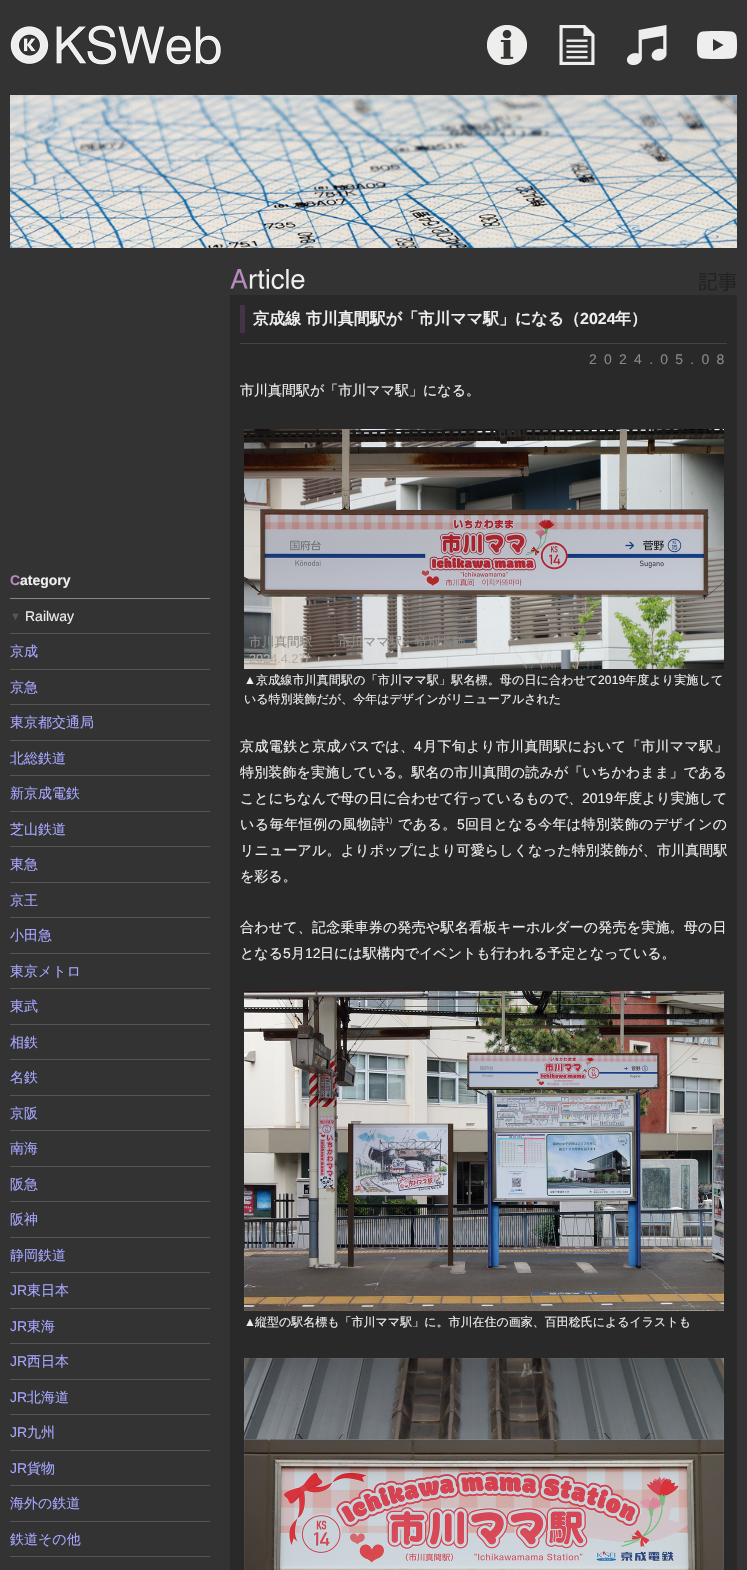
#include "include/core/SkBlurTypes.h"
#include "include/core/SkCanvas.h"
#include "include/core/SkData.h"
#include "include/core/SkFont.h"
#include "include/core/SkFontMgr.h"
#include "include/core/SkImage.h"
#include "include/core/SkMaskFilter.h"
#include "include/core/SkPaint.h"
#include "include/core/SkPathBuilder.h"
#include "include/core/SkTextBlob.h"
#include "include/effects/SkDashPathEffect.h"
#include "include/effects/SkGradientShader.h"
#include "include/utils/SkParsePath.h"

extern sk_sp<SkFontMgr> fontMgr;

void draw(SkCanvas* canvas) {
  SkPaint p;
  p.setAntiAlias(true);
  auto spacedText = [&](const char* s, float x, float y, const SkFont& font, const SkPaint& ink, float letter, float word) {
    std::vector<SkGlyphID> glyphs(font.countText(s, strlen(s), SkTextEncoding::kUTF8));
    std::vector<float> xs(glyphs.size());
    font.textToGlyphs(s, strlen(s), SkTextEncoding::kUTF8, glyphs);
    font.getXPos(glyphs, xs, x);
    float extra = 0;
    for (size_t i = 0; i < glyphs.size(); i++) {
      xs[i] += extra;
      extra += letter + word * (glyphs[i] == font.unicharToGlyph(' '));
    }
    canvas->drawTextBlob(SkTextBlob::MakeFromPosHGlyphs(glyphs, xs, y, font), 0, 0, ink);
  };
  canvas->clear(SkColorSetRGB(51, 51, 51));
  canvas->drawImageRect(SkImages::DeferredFromEncodedData(SkData::MakeFromFileName("images/1.png")), SkRect::MakeLTRB(10, 95, 737, 248), SkSamplingOptions());
  canvas->drawImageRect(SkImages::DeferredFromEncodedData(SkData::MakeFromFileName("images/2.png")), SkRect::MakeLTRB(10, 25, 222, 65), SkSamplingOptions());
  canvas->drawImageRect(SkImages::DeferredFromEncodedData(SkData::MakeFromFileName("images/3.png")), SkRect::MakeLTRB(487, 25, 527, 65), SkSamplingOptions());
  canvas->drawImageRect(SkImages::DeferredFromEncodedData(SkData::MakeFromFileName("images/4.png")), SkRect::MakeLTRB(559, 25, 595, 65), SkSamplingOptions());
  canvas->drawImageRect(SkImages::DeferredFromEncodedData(SkData::MakeFromFileName("images/5.png")), SkRect::MakeLTRB(627, 25, 667, 65), SkSamplingOptions());
  canvas->drawImageRect(SkImages::DeferredFromEncodedData(SkData::MakeFromFileName("images/6.png")), SkRect::MakeLTRB(697, 31, 737, 59), SkSamplingOptions());
  p.setColor(SkColorSetRGB(136, 136, 136));
  canvas->drawRect(SkRect::MakeLTRB(10, 598, 210, 599), p);
  p.setColor(SkColorSetRGB(85, 85, 85));
  canvas->drawRect(SkRect::MakeLTRB(10, 633, 210, 634), p);
  canvas->drawRect(SkRect::MakeLTRB(10, 669, 210, 670), p);
  canvas->drawRect(SkRect::MakeLTRB(10, 704, 210, 705), p);
  canvas->drawRect(SkRect::MakeLTRB(10, 740, 210, 741), p);
  canvas->drawRect(SkRect::MakeLTRB(10, 775, 210, 776), p);
  canvas->drawRect(SkRect::MakeLTRB(10, 811, 210, 812), p);
  canvas->drawRect(SkRect::MakeLTRB(10, 846, 210, 847), p);
  canvas->drawRect(SkRect::MakeLTRB(10, 882, 210, 883), p);
  canvas->drawRect(SkRect::MakeLTRB(10, 917, 210, 918), p);
  canvas->drawRect(SkRect::MakeLTRB(10, 953, 210, 954), p);
  canvas->drawRect(SkRect::MakeLTRB(10, 988, 210, 989), p);
  canvas->drawRect(SkRect::MakeLTRB(10, 1024, 210, 1025), p);
  canvas->drawRect(SkRect::MakeLTRB(10, 1059, 210, 1060), p);
  canvas->drawRect(SkRect::MakeLTRB(10, 1095, 210, 1096), p);
  canvas->drawRect(SkRect::MakeLTRB(10, 1130, 210, 1131), p);
  canvas->drawRect(SkRect::MakeLTRB(10, 1166, 210, 1167), p);
  canvas->drawRect(SkRect::MakeLTRB(10, 1201, 210, 1202), p);
  canvas->drawRect(SkRect::MakeLTRB(10, 1237, 210, 1238), p);
  canvas->drawRect(SkRect::MakeLTRB(10, 1272, 210, 1273), p);
  canvas->drawRect(SkRect::MakeLTRB(10, 1308, 210, 1309), p);
  canvas->drawRect(SkRect::MakeLTRB(10, 1343, 210, 1344), p);
  canvas->drawRect(SkRect::MakeLTRB(10, 1379, 210, 1380), p);
  canvas->drawRect(SkRect::MakeLTRB(10, 1414, 210, 1415), p);
  canvas->drawRect(SkRect::MakeLTRB(10, 1450, 210, 1451), p);
  canvas->drawRect(SkRect::MakeLTRB(10, 1485, 210, 1486), p);
  canvas->drawRect(SkRect::MakeLTRB(10, 1521, 210, 1522), p);
  canvas->drawRect(SkRect::MakeLTRB(10, 1556, 210, 1557), p);
  canvas->drawImageRect(SkImages::DeferredFromEncodedData(SkData::MakeFromFileName("images/7.png")), SkRect::MakeLTRB(230, 269, 305, 290), SkSamplingOptions());
  canvas->drawImageRect(SkImages::DeferredFromEncodedData(SkData::MakeFromFileName("images/8.png")), SkRect::MakeLTRB(698, 272, 737, 291), SkSamplingOptions());
  p.setColor(SkColorSetRGB(41, 41, 41));
  canvas->drawRect(SkRect::MakeLTRB(230, 295, 737, 1570), p);
  p.setColor(SkColorSetRGB(68, 68, 68));
  canvas->drawRect(SkRect::MakeLTRB(240, 343, 727, 344), p);
  p.setColor(SkColorSetRGB(69, 52, 71));
  canvas->drawRect(SkRect::MakeLTRB(240, 305, 245, 333), p);
  canvas->drawImageRect(SkImages::DeferredFromEncodedData(SkData::MakeFromFileName("images/9.png")), SkRect::MakeLTRB(244, 429, 724, 669), SkSamplingOptions());
  canvas->drawImageRect(SkImages::DeferredFromEncodedData(SkData::MakeFromFileName("images/10.png")), SkRect::MakeLTRB(244, 991, 724, 1311), SkSamplingOptions());
  canvas->drawImageRect(SkImages::DeferredFromEncodedData(SkData::MakeFromFileName("images/11.png")), SkRect::MakeLTRB(244, 1358, 724, 1570), SkSamplingOptions());
  SkFont font1(fontMgr->matchFamilyStyle("Liberation Sans", SkFontStyle::Bold()), 14);
  font1.setSubpixel(true);
  p.setColor(SkColorSetRGB(186, 139, 192));
  canvas->drawString("C", 10, 585, font1, p);
  p.setColor(SkColorSetRGB(238, 238, 238));
  canvas->drawString("ategory", 20, 585, font1, p);
  SkFont font2(fontMgr->matchFamilyStyle("Liberation Sans", SkFontStyle::Normal()), 11);
  font2.setSubpixel(true);
  p.setColor(SkColorSetRGB(85, 85, 85));
  canvas->drawString("▼", 10, 620, font2, p);
  SkFont font3(fontMgr->matchFamilyStyle("Liberation Sans", SkFontStyle::Normal()), 14);
  font3.setSubpixel(true);
  p.setColor(SkColorSetRGB(238, 238, 238));
  canvas->drawString("Railway", 25, 621, font3, p);
  SkFont font4(fontMgr->matchFamilyStyle("WenQuanYi Zen Hei", SkFontStyle(500, SkFontStyle::kNormal_Width, SkFontStyle::kUpright_Slant)), 14);
  font4.setSubpixel(true);
  p.setColor(SkColorSetRGB(166, 166, 255));
  canvas->drawString("京成", 10, 656, font4, p);
  canvas->drawString("京急", 10, 692, font4, p);
  canvas->drawString("東京都交通局", 10, 727, font4, p);
  canvas->drawString("北総鉄道", 10, 763, font4, p);
  canvas->drawString("新京成電鉄", 10, 798, font4, p);
  canvas->drawString("芝山鉄道", 10, 834, font4, p);
  canvas->drawString("東急", 10, 869, font4, p);
  canvas->drawString("京王", 10, 905, font4, p);
  canvas->drawString("小田急", 10, 940, font4, p);
  canvas->drawString("東京メトロ", 10, 976, font4, p);
  canvas->drawString("東武", 10, 1011, font4, p);
  canvas->drawString("相鉄", 10, 1047, font4, p);
  canvas->drawString("名鉄", 10, 1082, font4, p);
  canvas->drawString("京阪", 10, 1118, font4, p);
  canvas->drawString("南海", 10, 1153, font4, p);
  canvas->drawString("阪急", 10, 1189, font4, p);
  canvas->drawString("阪神", 10, 1224, font4, p);
  canvas->drawString("静岡鉄道", 10, 1260, font4, p);
  canvas->drawString("JR", 10, 1295, font3, p);
  canvas->drawString("東日本", 27, 1295, font4, p);
  canvas->drawString("JR", 10, 1331, font3, p);
  canvas->drawString("東海", 27, 1331, font4, p);
  canvas->drawString("JR", 10, 1366, font3, p);
  canvas->drawString("西日本", 27, 1366, font4, p);
  canvas->drawString("JR", 10, 1402, font3, p);
  canvas->drawString("北海道", 27, 1402, font4, p);
  canvas->drawString("JR", 10, 1437, font3, p);
  canvas->drawString("九州", 27, 1437, font4, p);
  canvas->drawString("JR", 10, 1473, font3, p);
  canvas->drawString("貨物", 27, 1473, font4, p);
  canvas->drawString("海外の鉄道", 10, 1508, font4, p);
  canvas->drawString("鉄道その他", 10, 1544, font4, p);
  SkFont font5(fontMgr->matchFamilyStyle("WenQuanYi Zen Hei", SkFontStyle::Bold()), 16);
  font5.setSubpixel(true);
  p.setColor(SkColorSetRGB(238, 238, 238));
  canvas->drawString("京成線 市川真間駅が「市川ママ駅」になる（", 253, 324, font5, p);
  SkFont font6(fontMgr->matchFamilyStyle("Liberation Sans", SkFontStyle::Bold()), 16);
  font6.setSubpixel(true);
  canvas->drawString("2024", 580, 324, font6, p);
  canvas->drawString("年）", 615, 324, font5, p);
  p.setColor(SkColorSetRGB(136, 136, 136));
  spacedText("2024.05.08", 589, 364, font3, p, 7.25f, 0);
  p.setColor(SkColorSetRGB(238, 238, 238));
  canvas->drawString("市川真間駅が「市川ママ駅」になる。", 240, 395, font4, p);
  SkFont font7(fontMgr->matchFamilyStyle("WenQuanYi Zen Hei", SkFontStyle(500, SkFontStyle::kNormal_Width, SkFontStyle::kUpright_Slant)), 12.7f);
  font7.setSubpixel(true);
  p.setColor(SkColorSetRGB(143, 138, 134));
  canvas->drawString("市川真間駅　「市川ママ駅」特別装飾", 249, 646, font7, p);
  SkFont font8(fontMgr->matchFamilyStyle("Liberation Sans", SkFontStyle::Normal()), 12.7f);
  font8.setSubpixel(true);
  p.setColor(SkColorSetRGB(176, 172, 167));
  canvas->drawString("2024.4.27/", 249, 663, font8, p);
  p.setColor(SkColorSetRGB(86, 76, 71));
  canvas->drawString("＊＊", 308, 663, font7, p);
  SkFont font9(fontMgr->matchFamilyStyle("Liberation Sans", SkFontStyle::Normal()), 12);
  font9.setSubpixel(true);
  p.setColor(SkColorSetRGB(238, 238, 238));
  spacedText("▲", 244, 684, font9, p, 0.15f, 0);
  SkFont font10(fontMgr->matchFamilyStyle("WenQuanYi Zen Hei", SkFontStyle(500, SkFontStyle::kNormal_Width, SkFontStyle::kUpright_Slant)), 12);
  font10.setSubpixel(true);
  spacedText("京成線市川真間駅の「市川ママ駅」駅名標。母の日に合わせて", 256, 684, font10, p, 0.15f, 0);
  spacedText("2019", 598, 684, font9, p, 0.15f, 0);
  spacedText("年度より実施して", 625, 684, font10, p, 0.15f, 0);
  canvas->drawString("いる特別装飾だが、今年はデザインがリニューアルされた", 244, 703, font10, p);
  spacedText("京成電鉄と京成バスでは、", 240, 751, font4, p, 0.4f, 0);
  spacedText("4", 414, 751, font3, p, 0.4f, 0);
  spacedText("月下旬より市川真間駅において「市川ママ駅」", 423, 751, font4, p, 0.4f, 0);
  spacedText("特別装飾を実施している。駅名の市川真間の読みが「いちかわまま」である", 240, 777, font4, p, 0.15f, 0);
  canvas->drawString("ことにちなんで母の日に合わせて行っているもので、", 240, 803, font4, p);
  canvas->drawString("2019", 582, 803, font3, p);
  canvas->drawString("年度より実施して", 614, 803, font4, p);
  spacedText("いる毎年恒例の風物詩", 240, 829, font4, p, 0.5f, 0);
  SkFont font11(fontMgr->matchFamilyStyle("Liberation Sans", SkFontStyle::Normal()), 8);
  font11.setSubpixel(true);
  canvas->drawString("1", 385, 823, font11, p);
  SkFont font12(fontMgr->matchFamilyStyle("WenQuanYi Zen Hei", SkFontStyle(500, SkFontStyle::kNormal_Width, SkFontStyle::kUpright_Slant)), 8);
  font12.setSubpixel(true);
  canvas->drawString("）", 389, 823, font12, p);
  spacedText("である。", 398, 829, font4, p, 0.4f, 0);
  spacedText("5", 457, 829, font3, p, 0.4f, 0);
  spacedText("回目となる今年は特別装飾のデザインの", 465, 829, font4, p, 0.4f, 0);
  spacedText("リニューアル。よりポップにより可愛らしくなった特別装飾が、市川真間駅", 240, 855, font4, p, 0.15f, 0);
  canvas->drawString("を彩る。", 240, 881, font4, p);
  spacedText("合わせて、記念乗車券の発売や駅名看板キーホルダーの発売を実施。母の日", 240, 932, font4, p, 0.2f, 0);
  canvas->drawString("となる", 240, 958, font4, p);
  canvas->drawString("5", 283, 958, font3, p);
  canvas->drawString("月", 291, 958, font4, p);
  canvas->drawString("12", 305, 958, font3, p);
  canvas->drawString("日には駅構内でイベントも行われる予定となっている。", 320, 958, font4, p);
  p.setColor(SkColorSetRGB(157, 129, 92));
  canvas->drawString(".4.", 277, 1306, font8, p);
  p.setColor(SkColorSetRGB(238, 238, 238));
  canvas->drawString("▲", 244, 1326, font9, p);
  canvas->drawString("縦型の駅名標も「市川ママ駅」に。市川在住の画家、百田稔氏によるイラストも", 255, 1326, font10, p);
}
